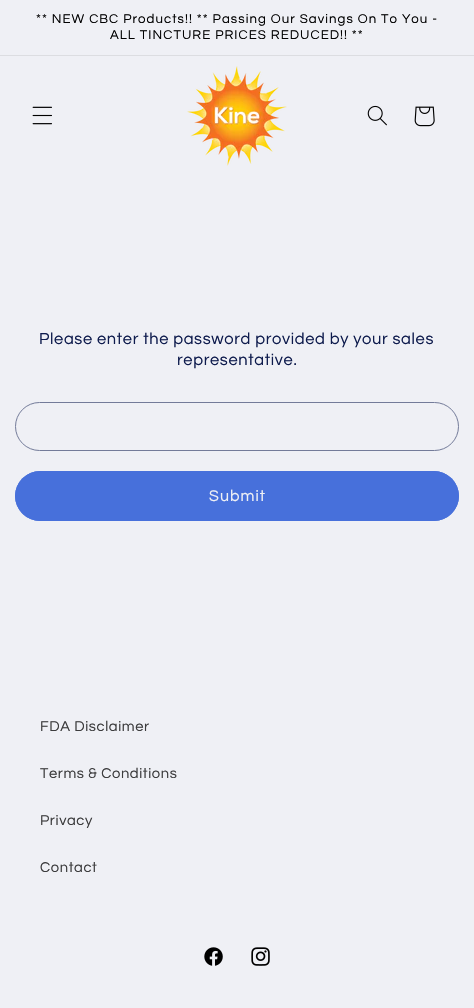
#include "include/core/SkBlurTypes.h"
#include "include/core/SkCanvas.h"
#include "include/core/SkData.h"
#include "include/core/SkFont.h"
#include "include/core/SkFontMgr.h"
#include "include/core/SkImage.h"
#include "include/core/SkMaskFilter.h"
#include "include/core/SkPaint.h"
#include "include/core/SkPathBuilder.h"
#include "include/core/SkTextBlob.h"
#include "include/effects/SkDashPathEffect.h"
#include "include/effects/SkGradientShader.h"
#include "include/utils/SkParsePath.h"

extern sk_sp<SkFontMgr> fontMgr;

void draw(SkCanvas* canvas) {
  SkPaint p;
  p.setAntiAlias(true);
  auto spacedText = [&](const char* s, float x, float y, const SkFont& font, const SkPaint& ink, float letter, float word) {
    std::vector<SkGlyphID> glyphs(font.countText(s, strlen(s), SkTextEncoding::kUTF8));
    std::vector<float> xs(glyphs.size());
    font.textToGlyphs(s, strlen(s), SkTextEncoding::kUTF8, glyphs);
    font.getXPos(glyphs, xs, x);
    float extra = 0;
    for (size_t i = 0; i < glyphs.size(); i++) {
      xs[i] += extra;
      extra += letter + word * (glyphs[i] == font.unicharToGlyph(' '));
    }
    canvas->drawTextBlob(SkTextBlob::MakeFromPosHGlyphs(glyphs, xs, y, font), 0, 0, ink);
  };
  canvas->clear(SkColorSetRGB(239, 240, 245));
  p.setColor(SkColorSetRGB(220, 221, 225));
  canvas->drawRect(SkRect::MakeLTRB(0, 55, 474, 56), p);
  canvas->drawImageRect(SkImages::DeferredFromEncodedData(SkData::MakeFromFileName("images/1.png")), SkRect::MakeLTRB(32, 106, 52, 125), SkSamplingOptions());
  canvas->drawImageRect(SkImages::DeferredFromEncodedData(SkData::MakeFromFileName("images/2.png")), SkRect::MakeLTRB(187, 66, 287, 166), SkSamplingOptions());
  canvas->drawImageRect(SkImages::DeferredFromEncodedData(SkData::MakeFromFileName("images/3.png")), SkRect::MakeLTRB(367, 105, 387, 126), SkSamplingOptions());
  canvas->drawImageRect(SkImages::DeferredFromEncodedData(SkData::MakeFromFileName("images/4.png")), SkRect::MakeLTRB(414, 106, 435, 127), SkSamplingOptions());
  p.setStyle(SkPaint::kStroke_Style);
  p.setStrokeWidth(1);
  p.setColor(SkColorSetRGB(115, 123, 153));
  canvas->drawRoundRect(SkRect::MakeLTRB(15.5f, 402.5f, 458.5f, 450.5f), 24, 24, p);
  p.setStyle(SkPaint::kFill_Style);
  p.setColor(SkColorSetRGB(71, 112, 219));
  canvas->drawRoundRect(SkRect::MakeLTRB(15, 471, 459, 521), 25, 25, p);
  p.setStyle(SkPaint::kStroke_Style);
  canvas->drawRoundRect(SkRect::MakeLTRB(15.5f, 471.5f, 458.5f, 520.5f), 24.5f, 24.5f, p);
  canvas->drawImageRect(SkImages::DeferredFromEncodedData(SkData::MakeFromFileName("images/5.png")), SkRect::MakeLTRB(204, 947, 223, 966), SkSamplingOptions());
  canvas->drawImageRect(SkImages::DeferredFromEncodedData(SkData::MakeFromFileName("images/6.png")), SkRect::MakeLTRB(251, 947, 270, 966), SkSamplingOptions());
  SkFont font1(fontMgr->matchFamilyStyle("Questrial", SkFontStyle::Normal()), 13.2f);
  font1.setSubpixel(true);
  p.setStyle(SkPaint::kFill_Style);
  p.setColor(SK_ColorBLACK);
  spacedText("** NEW CBC Products!! ** Passing Our Savings On To You -", 36, 23, font1, p, 1.05f, 0);
  spacedText("ALL TINCTURE PRICES REDUCED!! **", 110, 39, font1, p, 1.05f, 0);
  SkFont font2(fontMgr->matchFamilyStyle("Questrial", SkFontStyle::Normal()), 16.5f);
  font2.setSubpixel(true);
  p.setColor(SkColorSetRGB(14, 27, 77));
  spacedText("Please enter the password provided by your sales", 39, 344, font2, p, 0.65f, 0);
  spacedText("representative.", 177, 365, font2, p, 0.65f, 0);
  SkFont font3(fontMgr->matchFamilyStyle("Questrial", SkFontStyle::Normal()), 16);
  font3.setSubpixel(true);
  p.setColor(SkColorSetRGB(239, 240, 245));
  spacedText("Submit", 209, 501, font3, p, 1.05f, 0);
  SkFont font4(fontMgr->matchFamilyStyle("Questrial", SkFontStyle::Normal()), 14.75f);
  font4.setSubpixel(true);
  p.setColor(SkColorSetRGB(60, 60, 61));
  spacedText("FDA Disclaimer", 40, 731, font4, p, 0.6f, 0);
  spacedText("Terms & Conditions", 40, 778, font4, p, 0.6f, 0);
  spacedText("Privacy", 40, 825, font4, p, 0.6f, 0);
  spacedText("Contact", 40, 872, font4, p, 0.6f, 0);
}
